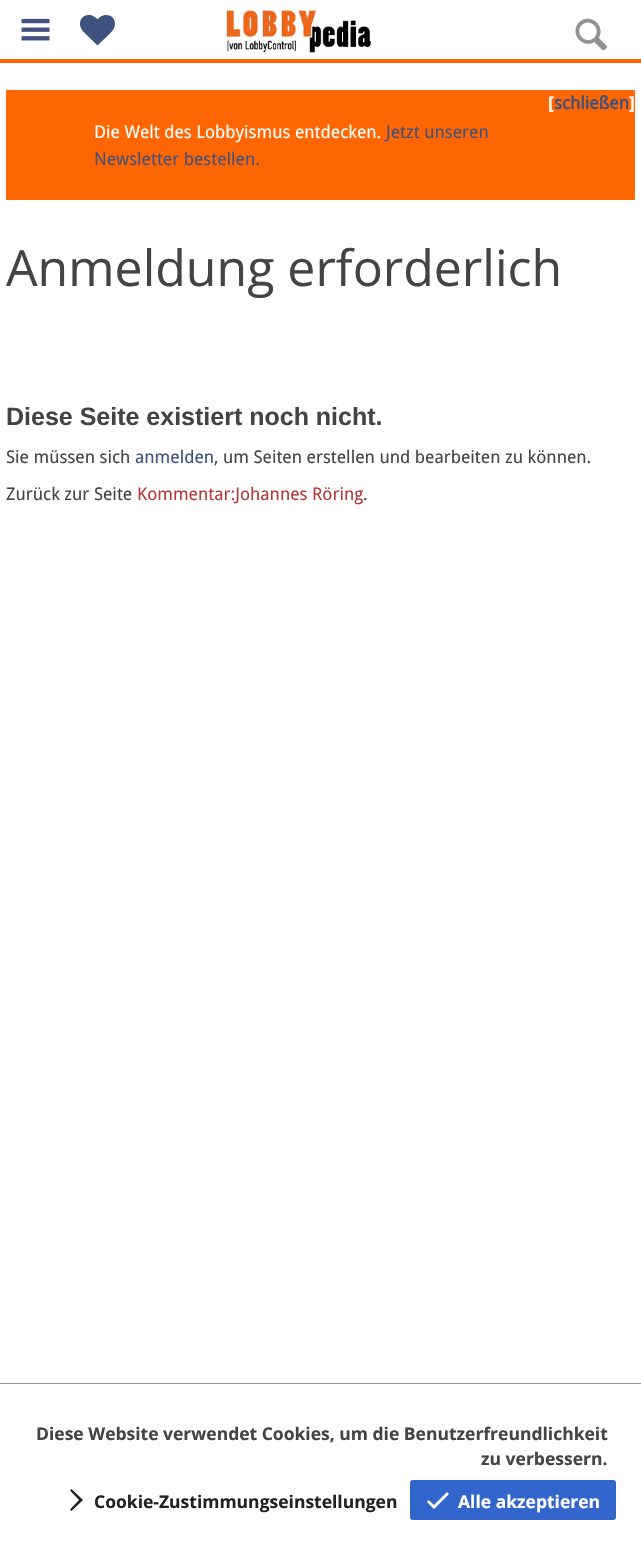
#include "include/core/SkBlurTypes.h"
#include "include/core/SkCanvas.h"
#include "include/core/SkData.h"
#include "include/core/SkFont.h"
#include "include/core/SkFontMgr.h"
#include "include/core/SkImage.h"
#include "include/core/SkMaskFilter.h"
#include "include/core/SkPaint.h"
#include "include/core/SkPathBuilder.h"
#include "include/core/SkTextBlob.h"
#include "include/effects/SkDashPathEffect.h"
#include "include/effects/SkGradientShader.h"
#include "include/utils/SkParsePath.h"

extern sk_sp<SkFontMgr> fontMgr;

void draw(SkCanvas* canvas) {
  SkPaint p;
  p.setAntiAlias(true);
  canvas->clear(SK_ColorWHITE);
  p.setColor(SkColorSetRGB(255, 101, 0));
  canvas->drawRect(SkRect::MakeLTRB(0, 59, 641, 63), p);
  canvas->drawImageRect(SkImages::DeferredFromEncodedData(SkData::MakeFromFileName("images/1.png")), SkRect::MakeLTRB(21, 18, 50, 41), SkSamplingOptions());
  canvas->drawImageRect(SkImages::DeferredFromEncodedData(SkData::MakeFromFileName("images/2.png")), SkRect::MakeLTRB(80, 15, 115, 45), SkSamplingOptions());
  canvas->drawImageRect(SkImages::DeferredFromEncodedData(SkData::MakeFromFileName("images/3.png")), SkRect::MakeLTRB(226, 10, 371, 53), SkSamplingOptions());
  canvas->drawImageRect(SkImages::DeferredFromEncodedData(SkData::MakeFromFileName("images/4.png")), SkRect::MakeLTRB(575, 18, 607, 51), SkSamplingOptions());
  canvas->drawRect(SkRect::MakeLTRB(6, 90, 635, 200), p);
  p.setColor(SkColorSetRGB(153, 153, 153));
  canvas->drawRect(SkRect::MakeLTRB(0, 1383, 641, 1384), p);
  p.setColor(SkColorSetRGB(33, 33, 33));
  canvas->drawPath(SkPathBuilder().moveTo(71.5f, 1489).lineTo(70, 1490.5f).lineTo(79, 1500).lineTo(70, 1509.5f).lineTo(71.5f, 1511).lineTo(83, 1500).close().detach(), p);
  p.setColor(SkColorSetRGB(51, 102, 204));
  canvas->drawRoundRect(SkRect::MakeLTRB(410.5f, 1480.5f, 615.5f, 1519.5f), 2, 2, p);
  p.setStyle(SkPaint::kStroke_Style);
  p.setStrokeWidth(1);
  canvas->drawRoundRect(SkRect::MakeLTRB(410.5f, 1480.5f, 615.5f, 1519.5f), 2, 2, p);
  p.setStyle(SkPaint::kFill_Style);
  p.setColor(SK_ColorWHITE);
  canvas->drawPath(SkPathBuilder().moveTo(434, 1505).lineTo(428.5f, 1500).lineTo(427, 1502).lineTo(434, 1509).lineTo(449, 1494).lineTo(447, 1492).close().detach(), p);
  SkFont font1(fontMgr->matchFamilyStyle("Open Sans", SkFontStyle::Bold()), 17.5f);
  font1.setSubpixel(true);
  canvas->drawString("[", 548, 109, font1, p);
  SkFont font2(fontMgr->matchFamilyStyle("Droid Sans", SkFontStyle::Bold()), 17.5f);
  font2.setSubpixel(true);
  p.setColor(SkColorSetRGB(63, 82, 127));
  canvas->drawString("schließen", 554, 109, font2, p);
  p.setColor(SK_ColorWHITE);
  canvas->drawString("]", 629, 109, font1, p);
  SkFont font3(fontMgr->matchFamilyStyle("Droid Sans", SkFontStyle::Normal()), 17.5f);
  font3.setSubpixel(true);
  canvas->drawString("Die Welt des Lobbyismus entdecken.", 94, 138, font3, p);
  p.setColor(SkColorSetRGB(63, 82, 127));
  canvas->drawString("Jetzt unseren", 386, 138, font3, p);
  canvas->drawString("Newsletter bestellen.", 94, 165, font3, p);
  SkFont font4(fontMgr->matchFamilyStyle("Open Sans", SkFontStyle::Normal()), 50);
  font4.setSubpixel(true);
  p.setColor(SkColorSetRGB(68, 68, 68));
  canvas->drawString("Anmeldung erforderlich", 6, 286, font4, p);
  SkFont font5(fontMgr->matchFamilyStyle("Liberation Sans", SkFontStyle::Bold()), 25);
  font5.setSubpixel(true);
  canvas->drawString("Diese Seite existiert noch nicht.", 6, 425, font5, p);
  canvas->drawString("Sie müssen sich", 6, 463, font3, p);
  p.setColor(SkColorSetRGB(63, 82, 127));
  canvas->drawString("anmelden", 135, 463, font3, p);
  p.setColor(SkColorSetRGB(68, 68, 68));
  canvas->drawString(", um Seiten erstellen und bearbeiten zu können.", 214, 463, font3, p);
  canvas->drawString("Zurück zur Seite", 6, 500, font3, p);
  p.setColor(SkColorSetRGB(183, 58, 58));
  canvas->drawString("Kommentar:Johannes Röring", 137, 500, font3, p);
  p.setColor(SkColorSetRGB(68, 68, 68));
  canvas->drawString(".", 363, 500, font3, p);
  canvas->drawString("Diese Website verwendet Cookies, um die Benutzerfreundlichkeit", 36, 1440, font1, p);
  canvas->drawString("zu verbessern.", 481, 1465, font1, p);
  p.setColor(SkColorSetRGB(34, 34, 34));
  canvas->drawString("Cookie-Zustimmungseinstellungen", 94, 1508, font1, p);
  p.setColor(SK_ColorWHITE);
  canvas->drawString("Alle akzeptieren", 458, 1508, font1, p);
}
